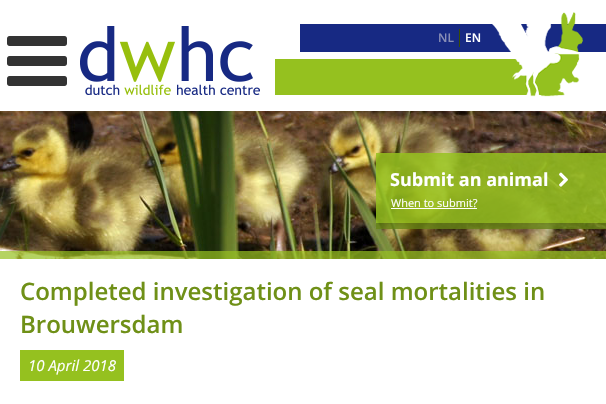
#include "include/core/SkBlurTypes.h"
#include "include/core/SkCanvas.h"
#include "include/core/SkData.h"
#include "include/core/SkFont.h"
#include "include/core/SkFontMgr.h"
#include "include/core/SkImage.h"
#include "include/core/SkMaskFilter.h"
#include "include/core/SkPaint.h"
#include "include/core/SkPathBuilder.h"
#include "include/core/SkTextBlob.h"
#include "include/effects/SkDashPathEffect.h"
#include "include/effects/SkGradientShader.h"
#include "include/utils/SkParsePath.h"

extern sk_sp<SkFontMgr> fontMgr;

void draw(SkCanvas* canvas) {
  SkPaint p;
  p.setAntiAlias(true);
  canvas->clear(SK_ColorWHITE);
  canvas->drawImageRect(SkImages::DeferredFromEncodedData(SkData::MakeFromFileName("images/1.png")), SkRect::MakeLTRB(7, 36, 67, 86), SkSamplingOptions());
  canvas->drawImageRect(SkImages::DeferredFromEncodedData(SkData::MakeFromFileName("images/2.png")), SkRect::MakeLTRB(80, 26, 260, 95), SkSamplingOptions());
  p.setColor(SkColorSetRGB(23, 41, 131));
  canvas->drawRect(SkRect::MakeLTRB(300, 24, 606, 52), p);
  p.setColor(SkColorSetRGB(57, 76, 6));
  canvas->drawRect(SkRect::MakeLTRB(459, 29, 460, 47), p);
  p.setColor(SkColorSetRGB(149, 193, 31));
  canvas->drawRect(SkRect::MakeLTRB(275, 59, 541, 95), p);
  canvas->drawImageRect(SkImages::DeferredFromEncodedData(SkData::MakeFromFileName("images/3.png")), SkRect::MakeLTRB(492, 12, 583, 97), SkSamplingOptions());
  canvas->drawImageRect(SkImages::DeferredFromEncodedData(SkData::MakeFromFileName("images/4.png")), SkRect::MakeLTRB(0, 111, 606, 259), SkSamplingOptions());
  p.setColor(SkColorSetARGB(217, 149, 193, 31));
  canvas->drawRect(SkRect::MakeLTRB(376, 153, 606, 223), p);
  p.setColor(SkColorSetARGB(204, 101, 131, 21));
  canvas->drawRect(SkRect::MakeLTRB(376, 223, 606, 229), p);
  canvas->drawImageRect(SkImages::DeferredFromEncodedData(SkData::MakeFromFileName("images/5.png")), SkRect::MakeLTRB(559, 172, 568, 187), SkSamplingOptions());
  p.setColor(SK_ColorWHITE);
  canvas->drawRect(SkRect::MakeLTRB(391, 208, 477, 209), p);
  p.setColor(SkColorSetARGB(179, 149, 193, 31));
  canvas->drawRect(SkRect::MakeLTRB(0, 251, 606, 259), p);
  p.setColor(SkColorSetRGB(149, 193, 31));
  canvas->drawRect(SkRect::MakeLTRB(20, 350, 124, 381), p);
  SkFont font1(fontMgr->matchFamilyStyle("Open Sans", SkFontStyle(600, SkFontStyle::kNormal_Width, SkFontStyle::kUpright_Slant)), 12);
  font1.setSubpixel(true);
  p.setColor(SkColorSetRGB(137, 142, 182));
  canvas->drawString("NL", 438, 42, font1, p);
  p.setColor(SK_ColorWHITE);
  canvas->drawString("EN", 465, 42, font1, p);
  SkFont font2(fontMgr->matchFamilyStyle("Open Sans", SkFontStyle::Bold()), 18);
  font2.setSubpixel(true);
  canvas->drawString("Submit an animal", 390, 186, font2, p);
  SkFont font3(fontMgr->matchFamilyStyle("Open Sans", SkFontStyle::Normal()), 11);
  font3.setSubpixel(true);
  canvas->drawString("When to submit?", 391, 207, font3, p);
  SkFont font4(fontMgr->matchFamilyStyle("Open Sans", SkFontStyle(600, SkFontStyle::kNormal_Width, SkFontStyle::kUpright_Slant)), 24);
  font4.setSubpixel(true);
  p.setColor(SkColorSetRGB(111, 144, 23));
  canvas->drawString("Completed investigation of seal mortalities in", 20, 300, font4, p);
  canvas->drawString("Brouwersdam", 20, 333, font4, p);
  SkFont font5(fontMgr->matchFamilyStyle("Open Sans", SkFontStyle::Italic()), 15);
  font5.setSubpixel(true);
  p.setColor(SK_ColorWHITE);
  canvas->drawString("10 April 2018", 28, 371, font5, p);
}
